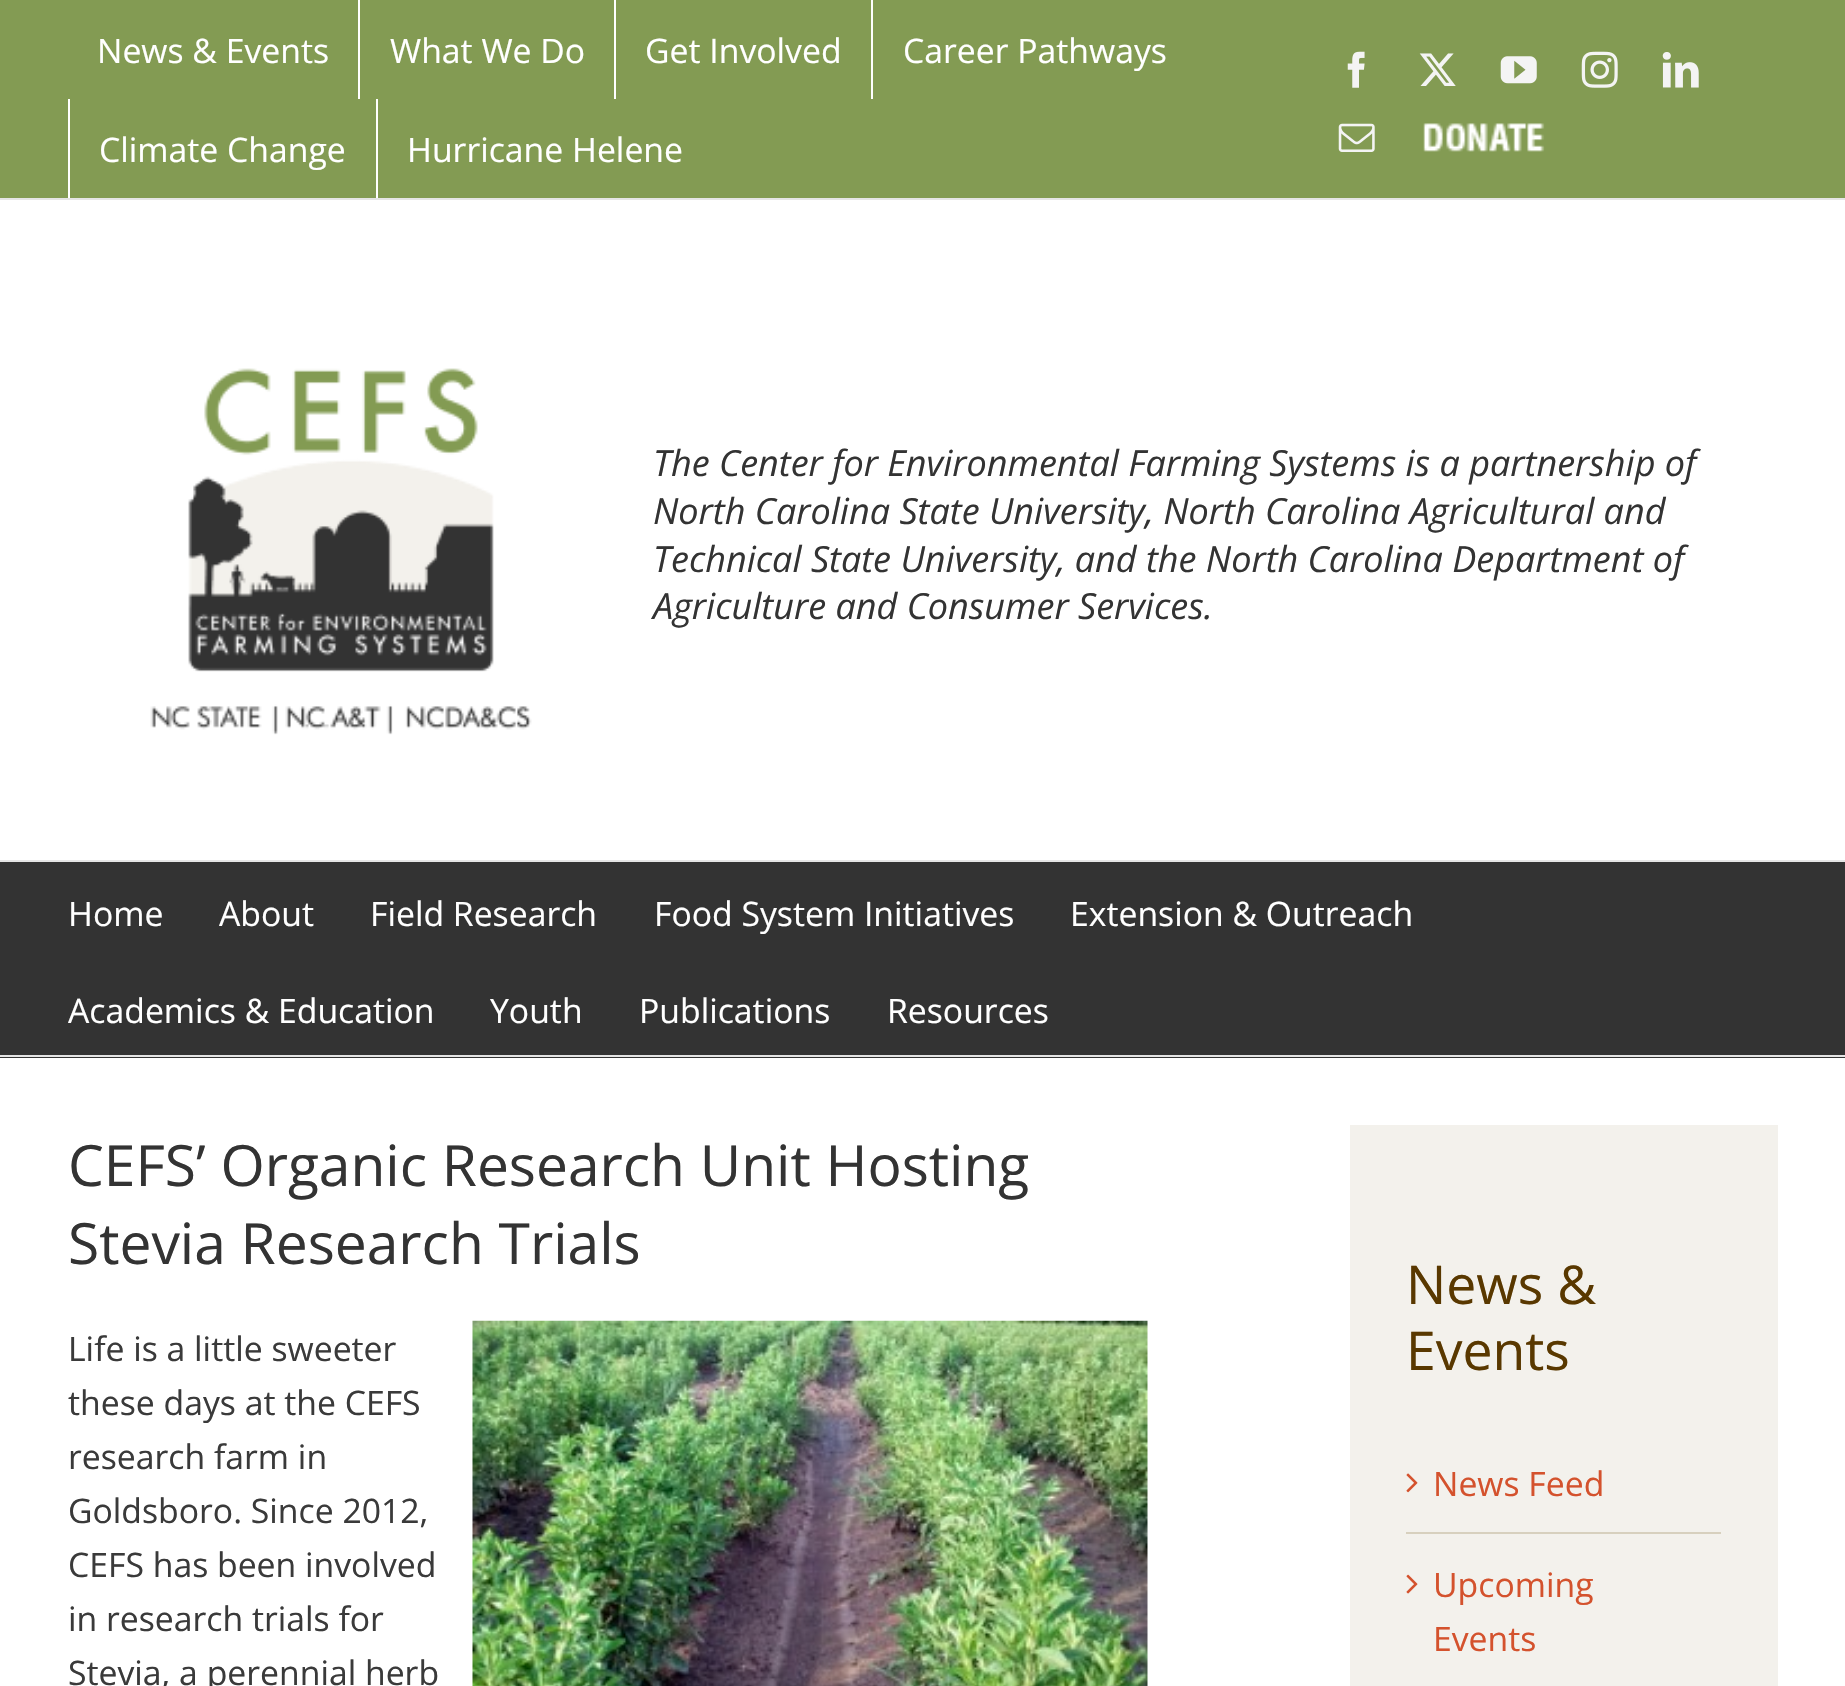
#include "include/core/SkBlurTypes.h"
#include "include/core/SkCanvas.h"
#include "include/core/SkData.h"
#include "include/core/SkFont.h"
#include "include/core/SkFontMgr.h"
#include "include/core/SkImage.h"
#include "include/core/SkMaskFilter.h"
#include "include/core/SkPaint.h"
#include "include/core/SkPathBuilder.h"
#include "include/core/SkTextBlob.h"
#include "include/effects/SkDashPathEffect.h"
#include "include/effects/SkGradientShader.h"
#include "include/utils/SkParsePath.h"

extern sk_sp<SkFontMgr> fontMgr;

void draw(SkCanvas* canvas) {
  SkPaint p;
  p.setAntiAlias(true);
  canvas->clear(SK_ColorWHITE);
  p.setColor(SkColorSetRGB(131, 155, 83));
  canvas->drawRect(SkRect::MakeLTRB(0, 0, 1845, 198), p);
  p.setColor(SkColorSetRGB(229, 229, 229));
  canvas->drawRect(SkRect::MakeLTRB(0, 198, 1845, 200), p);
  p.setColor(SK_ColorWHITE);
  canvas->drawRect(SkRect::MakeLTRB(358, 0, 360, 99), p);
  canvas->drawRect(SkRect::MakeLTRB(614, 0, 616, 99), p);
  canvas->drawRect(SkRect::MakeLTRB(871, 0, 873, 99), p);
  canvas->drawRect(SkRect::MakeLTRB(68, 99, 70, 198), p);
  canvas->drawRect(SkRect::MakeLTRB(376, 99, 378, 198), p);
  canvas->drawImageRect(SkImages::DeferredFromEncodedData(SkData::MakeFromFileName("images/1.png")), SkRect::MakeLTRB(1347, 51, 1365, 88), SkSamplingOptions());
  canvas->drawImageRect(SkImages::DeferredFromEncodedData(SkData::MakeFromFileName("images/2.png")), SkRect::MakeLTRB(1419, 53, 1456, 86), SkSamplingOptions());
  canvas->drawImageRect(SkImages::DeferredFromEncodedData(SkData::MakeFromFileName("images/3.png")), SkRect::MakeLTRB(1500, 56, 1537, 84), SkSamplingOptions());
  canvas->drawImageRect(SkImages::DeferredFromEncodedData(SkData::MakeFromFileName("images/4.png")), SkRect::MakeLTRB(1581, 51, 1618, 88), SkSamplingOptions());
  canvas->drawImageRect(SkImages::DeferredFromEncodedData(SkData::MakeFromFileName("images/5.png")), SkRect::MakeLTRB(1662, 52, 1699, 88), SkSamplingOptions());
  canvas->drawImageRect(SkImages::DeferredFromEncodedData(SkData::MakeFromFileName("images/6.png")), SkRect::MakeLTRB(1338, 123, 1375, 152), SkSamplingOptions());
  canvas->drawImageRect(SkImages::DeferredFromEncodedData(SkData::MakeFromFileName("images/7.png")), SkRect::MakeLTRB(1423, 123, 1545, 152), SkSamplingOptions());
  p.setColor(SkColorSetRGB(229, 229, 229));
  canvas->drawRect(SkRect::MakeLTRB(0, 860, 1845, 862), p);
  canvas->drawImageRect(SkImages::DeferredFromEncodedData(SkData::MakeFromFileName("images/8.png")), SkRect::MakeLTRB(150, 368, 532, 735), SkSamplingOptions());
  p.setColor(SkColorSetRGB(51, 51, 51));
  canvas->drawRect(SkRect::MakeLTRB(0, 862, 1845, 1058), p);
  p.setColor(SkColorSetRGB(229, 229, 229));
  canvas->drawRect(SkRect::MakeLTRB(0, 1055, 1845, 1057), p);
  canvas->drawImageRect(SkImages::DeferredFromEncodedData(SkData::MakeFromFileName("images/9.png")), SkRect::MakeLTRB(472, 1320, 1148, 1686), SkSamplingOptions());
  p.setColor(SkColorSetRGB(243, 241, 236));
  canvas->drawRect(SkRect::MakeLTRB(1350, 1125, 1778, 1686), p);
  p.setColor(SkColorSetRGB(215, 208, 190));
  canvas->drawRect(SkRect::MakeLTRB(1406, 1532, 1721, 1534), p);
  canvas->drawImageRect(SkImages::DeferredFromEncodedData(SkData::MakeFromFileName("images/10.png")), SkRect::MakeLTRB(1406, 1473, 1418, 1493), SkSamplingOptions());
  canvas->drawImageRect(SkImages::DeferredFromEncodedData(SkData::MakeFromFileName("images/11.png")), SkRect::MakeLTRB(1406, 1574, 1418, 1594), SkSamplingOptions());
  SkFont font1(fontMgr->matchFamilyStyle("Open Sans", SkFontStyle::Normal()), 33.75f);
  font1.setSubpixel(true);
  p.setColor(SK_ColorWHITE);
  canvas->drawString("News & Events", 97, 63, font1, p);
  canvas->drawString("What We Do", 390, 63, font1, p);
  canvas->drawString("Get Involved", 645, 63, font1, p);
  canvas->drawString("Career Pathways", 903, 63, font1, p);
  canvas->drawString("Climate Change", 99, 162, font1, p);
  canvas->drawString("Hurricane Helene", 407, 162, font1, p);
  SkFont font2(fontMgr->matchFamilyStyle("Open Sans", SkFontStyle::Italic()), 36);
  font2.setSubpixel(true);
  p.setColor(SkColorSetRGB(51, 51, 51));
  canvas->drawString("The Center for Environmental Farming Systems is a partnership of", 653, 476, font2, p);
  canvas->drawString("North Carolina State University, North Carolina Agricultural and", 653, 524, font2, p);
  canvas->drawString("Technical State University, and the North Carolina Department of", 653, 572, font2, p);
  canvas->drawString("Agriculture and Consumer Services.", 653, 619, font2, p);
  p.setColor(SK_ColorWHITE);
  canvas->drawString("Home", 68, 926, font1, p);
  canvas->drawString("About", 219, 926, font1, p);
  canvas->drawString("Field Research", 370, 926, font1, p);
  canvas->drawString("Food System Initiatives", 654, 926, font1, p);
  canvas->drawString("Extension & Outreach", 1070, 926, font1, p);
  canvas->drawString("Academics & Education", 68, 1023, font1, p);
  canvas->drawString("Youth", 490, 1023, font1, p);
  canvas->drawString("Publications", 639, 1023, font1, p);
  canvas->drawString("Resources", 887, 1023, font1, p);
  SkFont font3(fontMgr->matchFamilyStyle("Open Sans", SkFontStyle::Normal()), 56.9f);
  font3.setSubpixel(true);
  p.setColor(SkColorSetRGB(51, 51, 51));
  canvas->drawString("CEFS’ Organic Research Unit Hosting", 68, 1186, font3, p);
  canvas->drawString("Stevia Research Trials", 68, 1264, font3, p);
  p.setColor(SkColorSetRGB(58, 58, 58));
  canvas->drawString("Life is a little sweeter", 68, 1361, font1, p);
  canvas->drawString("these days at the CEFS", 68, 1415, font1, p);
  canvas->drawString("research farm in", 68, 1469, font1, p);
  canvas->drawString("Goldsboro. Since 2012,", 68, 1523, font1, p);
  canvas->drawString("CEFS has been involved", 68, 1577, font1, p);
  canvas->drawString("in research trials for", 68, 1631, font1, p);
  canvas->drawString("Stevia, a perennial herb", 68, 1685, font1, p);
  SkFont font4(fontMgr->matchFamilyStyle("Open Sans", SkFontStyle::Normal()), 53.5f);
  font4.setSubpixel(true);
  p.setColor(SkColorSetRGB(89, 56, 0));
  canvas->drawString("News &", 1406, 1304, font4, p);
  canvas->drawString("Events", 1406, 1370, font4, p);
  p.setColor(SkColorSetRGB(212, 82, 45));
  canvas->drawString("News Feed", 1433, 1496, font1, p);
  canvas->drawString("Upcoming", 1433, 1597, font1, p);
  canvas->drawString("Events", 1433, 1651, font1, p);
}
